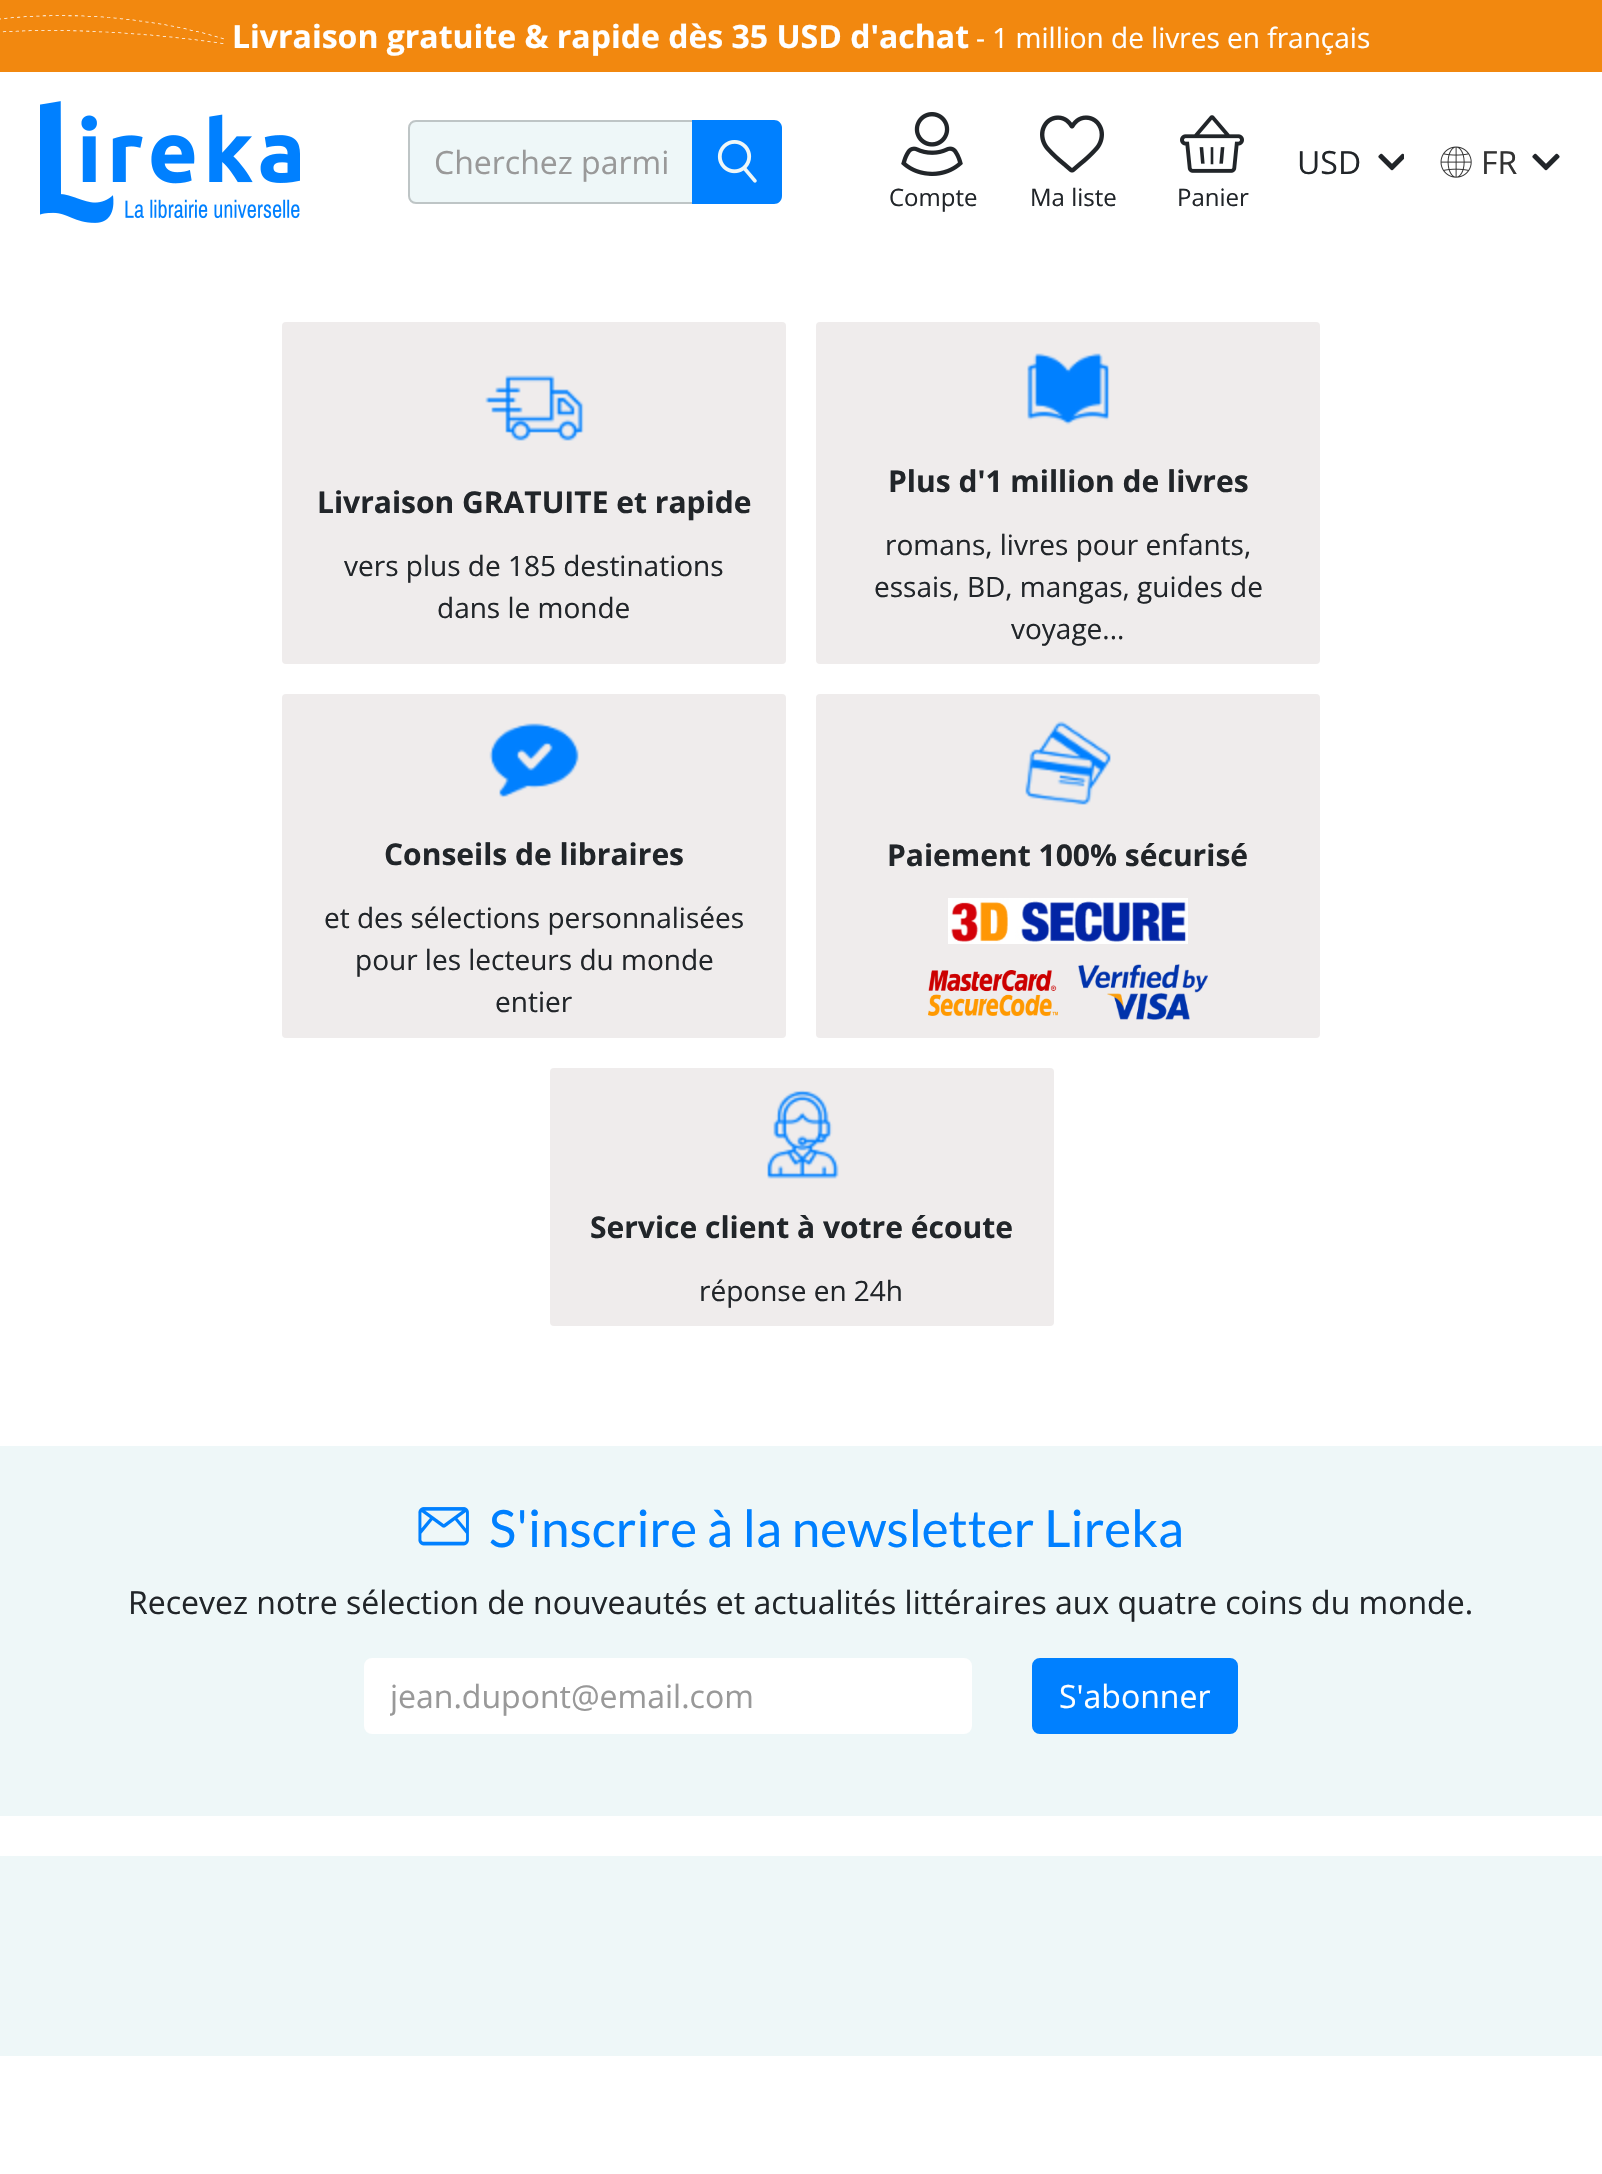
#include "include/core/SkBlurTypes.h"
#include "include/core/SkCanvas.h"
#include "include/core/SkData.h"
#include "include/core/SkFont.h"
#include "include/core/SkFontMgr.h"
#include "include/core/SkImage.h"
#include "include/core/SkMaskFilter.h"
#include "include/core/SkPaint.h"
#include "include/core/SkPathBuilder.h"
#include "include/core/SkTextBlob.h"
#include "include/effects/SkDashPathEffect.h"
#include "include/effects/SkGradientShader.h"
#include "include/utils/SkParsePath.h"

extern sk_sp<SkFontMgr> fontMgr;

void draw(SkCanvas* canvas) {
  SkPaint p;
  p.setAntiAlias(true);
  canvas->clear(SK_ColorWHITE);
  p.setColor(SkColorSetRGB(242, 136, 15));
  canvas->drawRect(SkRect::MakeLTRB(0, 0, 1602, 72), p);
  canvas->drawImageRect(SkImages::DeferredFromEncodedData(SkData::MakeFromFileName("images/1.png")), SkRect::MakeLTRB(0, 15, 224, 44), SkSamplingOptions());
  canvas->drawImageRect(SkImages::DeferredFromEncodedData(SkData::MakeFromFileName("images/2.png")), SkRect::MakeLTRB(40, 101, 300, 223), SkSamplingOptions());
  p.setColor(SkColorSetRGB(238, 247, 248));
  canvas->drawPath(SkPathBuilder().moveTo(416, 121).lineTo(693, 121).lineTo(693, 203).lineTo(416, 203).cubicTo(412, 203, 409, 200, 409, 196).lineTo(409, 128).cubicTo(409, 124, 412, 121, 416, 121).close().detach(), p);
  p.setStyle(SkPaint::kStroke_Style);
  p.setStrokeWidth(2);
  p.setColor(SkColorSetRGB(190, 197, 198));
  canvas->drawPath(SkPathBuilder().moveTo(416, 121).lineTo(693, 121).lineTo(693, 203).lineTo(416, 203).cubicTo(412, 203, 409, 200, 409, 196).lineTo(409, 128).cubicTo(409, 124, 412, 121, 416, 121).close().detach(), p);
  p.setStyle(SkPaint::kFill_Style);
  p.setColor(SkColorSetRGB(0, 128, 255));
  canvas->drawPath(SkPathBuilder().moveTo(692, 120).lineTo(774, 120).cubicTo(778.5f, 120, 782, 123.5f, 782, 128).lineTo(782, 196).cubicTo(782, 200.5f, 778.5f, 204, 774, 204).lineTo(692, 204).close().detach(), p);
  canvas->drawImageRect(SkImages::DeferredFromEncodedData(SkData::MakeFromFileName("images/3.png")), SkRect::MakeLTRB(717, 140, 757, 183), SkSamplingOptions());
  canvas->drawImageRect(SkImages::DeferredFromEncodedData(SkData::MakeFromFileName("images/4.png")), SkRect::MakeLTRB(1378, 153, 1404, 171), SkSamplingOptions());
  canvas->drawImageRect(SkImages::DeferredFromEncodedData(SkData::MakeFromFileName("images/5.png")), SkRect::MakeLTRB(1440, 146, 1472, 178), SkSamplingOptions());
  canvas->drawImageRect(SkImages::DeferredFromEncodedData(SkData::MakeFromFileName("images/6.png")), SkRect::MakeLTRB(1532, 153, 1560, 171), SkSamplingOptions());
  canvas->drawImageRect(SkImages::DeferredFromEncodedData(SkData::MakeFromFileName("images/7.png")), SkRect::MakeLTRB(901, 112, 963, 176), SkSamplingOptions());
  canvas->drawImageRect(SkImages::DeferredFromEncodedData(SkData::MakeFromFileName("images/8.png")), SkRect::MakeLTRB(1040, 115, 1104, 173), SkSamplingOptions());
  canvas->drawImageRect(SkImages::DeferredFromEncodedData(SkData::MakeFromFileName("images/9.png")), SkRect::MakeLTRB(1180, 115, 1244, 173), SkSamplingOptions());
  p.setColor(SkColorSetRGB(239, 236, 236));
  canvas->drawRoundRect(SkRect::MakeLTRB(282, 322, 786, 664), 4, 4, p);
  canvas->drawImageRect(SkImages::DeferredFromEncodedData(SkData::MakeFromFileName("images/10.png")), SkRect::MakeLTRB(485, 375, 584, 441), SkSamplingOptions());
  canvas->drawRoundRect(SkRect::MakeLTRB(816, 322, 1320, 664), 4, 4, p);
  canvas->drawImageRect(SkImages::DeferredFromEncodedData(SkData::MakeFromFileName("images/11.png")), SkRect::MakeLTRB(1027, 353, 1110, 425), SkSamplingOptions());
  canvas->drawRoundRect(SkRect::MakeLTRB(282, 694, 786, 1038), 4, 4, p);
  canvas->drawImageRect(SkImages::DeferredFromEncodedData(SkData::MakeFromFileName("images/12.png")), SkRect::MakeLTRB(489, 723, 579, 798), SkSamplingOptions());
  canvas->drawRoundRect(SkRect::MakeLTRB(816, 694, 1320, 1038), 4, 4, p);
  canvas->drawImageRect(SkImages::DeferredFromEncodedData(SkData::MakeFromFileName("images/13.png")), SkRect::MakeLTRB(1025, 721, 1111, 805), SkSamplingOptions());
  canvas->drawImageRect(SkImages::DeferredFromEncodedData(SkData::MakeFromFileName("images/14.png")), SkRect::MakeLTRB(948, 898, 1188, 944), SkSamplingOptions());
  canvas->drawImageRect(SkImages::DeferredFromEncodedData(SkData::MakeFromFileName("images/15.png")), SkRect::MakeLTRB(928, 970, 1058, 1016), SkSamplingOptions());
  canvas->drawImageRect(SkImages::DeferredFromEncodedData(SkData::MakeFromFileName("images/16.png")), SkRect::MakeLTRB(1078, 964, 1208, 1020), SkSamplingOptions());
  canvas->drawRoundRect(SkRect::MakeLTRB(550, 1068, 1054, 1326), 4, 4, p);
  canvas->drawImageRect(SkImages::DeferredFromEncodedData(SkData::MakeFromFileName("images/17.png")), SkRect::MakeLTRB(767, 1090, 839, 1179), SkSamplingOptions());
  p.setColor(SkColorSetRGB(238, 247, 248));
  canvas->drawRect(SkRect::MakeLTRB(0, 1446, 1602, 1816), p);
  canvas->drawImageRect(SkImages::DeferredFromEncodedData(SkData::MakeFromFileName("images/18.png")), SkRect::MakeLTRB(418, 1507, 469, 1546), SkSamplingOptions());
  p.setColor(SK_ColorWHITE);
  canvas->drawRoundRect(SkRect::MakeLTRB(365, 1659, 971, 1733), 7, 7, p);
  p.setStyle(SkPaint::kStroke_Style);
  canvas->drawRoundRect(SkRect::MakeLTRB(365, 1659, 971, 1733), 7, 7, p);
  p.setStyle(SkPaint::kFill_Style);
  p.setColor(SkColorSetRGB(0, 128, 255));
  canvas->drawRoundRect(SkRect::MakeLTRB(1033, 1659, 1237, 1733), 7, 7, p);
  p.setStyle(SkPaint::kStroke_Style);
  canvas->drawRoundRect(SkRect::MakeLTRB(1033, 1659, 1237, 1733), 7, 7, p);
  p.setStyle(SkPaint::kFill_Style);
  p.setColor(SkColorSetRGB(238, 247, 248));
  canvas->drawRect(SkRect::MakeLTRB(0, 1856, 1602, 2056), p);
  SkFont font1(fontMgr->matchFamilyStyle("Open Sans", SkFontStyle::Bold()), 32);
  font1.setSubpixel(true);
  p.setColor(SK_ColorWHITE);
  canvas->drawString("Livraison gratuite & rapide dès 35 USD d'achat", 232, 48, font1, p);
  SkFont font2(fontMgr->matchFamilyStyle("Open Sans", SkFontStyle::Normal()), 28);
  font2.setSubpixel(true);
  canvas->drawString("- 1 million de livres en français", 976, 48, font2, p);
  SkFont font3(fontMgr->matchFamilyStyle("Open Sans", SkFontStyle::Normal()), 32);
  font3.setSubpixel(true);
  p.setColor(SkColorSetRGB(153, 153, 153));
  canvas->drawString("Cherchez parmi", 434, 174, font3, p);
  p.setColor(SkColorSetRGB(33, 37, 41));
  canvas->drawString("USD", 1297, 174, font3, p);
  p.setColor(SkColorSetRGB(51, 51, 51));
  canvas->drawString("FR", 1481, 174, font3, p);
  SkFont font4(fontMgr->matchFamilyStyle("Open Sans", SkFontStyle::Normal()), 24);
  font4.setSubpixel(true);
  p.setColor(SkColorSetRGB(33, 37, 41));
  canvas->drawString("Compte", 889, 206, font4, p);
  canvas->drawString("Ma liste", 1030, 206, font4, p);
  canvas->drawString("Panier", 1177, 206, font4, p);
  SkFont font5(fontMgr->matchFamilyStyle("Open Sans", SkFontStyle::Bold()), 30);
  font5.setSubpixel(true);
  canvas->drawString("Livraison GRATUITE et rapide", 317, 513, font5, p);
  canvas->drawString("vers plus de 185 destinations", 344, 576, font2, p);
  canvas->drawString("dans le monde", 437, 618, font2, p);
  canvas->drawString("Plus d'1 million de livres", 888, 492, font5, p);
  canvas->drawString("romans, livres pour enfants,", 885, 555, font2, p);
  canvas->drawString("essais, BD, mangas, guides de", 874, 597, font2, p);
  canvas->drawString("voyage...", 1011, 639, font2, p);
  canvas->drawString("Conseils de libraires", 384, 865, font5, p);
  canvas->drawString("et des sélections personnalisées", 324, 928, font2, p);
  canvas->drawString("pour les lecteurs du monde", 355, 970, font2, p);
  canvas->drawString("entier", 495, 1012, font2, p);
  canvas->drawString("Paiement 100% sécurisé", 887, 866, font5, p);
  canvas->drawString("Service client à votre écoute", 590, 1238, font5, p);
  canvas->drawString("réponse en 24h", 699, 1301, font2, p);
  SkFont font6(fontMgr->matchFamilyStyle("Lato", SkFontStyle::Normal()), 51.25f);
  font6.setSubpixel(true);
  p.setColor(SkColorSetRGB(0, 128, 255));
  canvas->drawString("S'inscrire à la newsletter Lireka", 489, 1547, font6, p);
  p.setColor(SkColorSetRGB(33, 37, 41));
  canvas->drawString("Recevez notre sélection de nouveautés et actualités littéraires aux quatre coins du monde.", 128, 1614, font3, p);
  canvas->save();
  canvas->clipRect(SkRect::MakeLTRB(390, 1674, 946, 1718));
  p.setColor(SkColorSetRGB(153, 153, 153));
  canvas->drawString("jean.dupont@email.com", 390, 1708, font3, p);
  canvas->restore();
  p.setColor(SK_ColorWHITE);
  canvas->drawString("S'abonner", 1059, 1708, font3, p);
}
